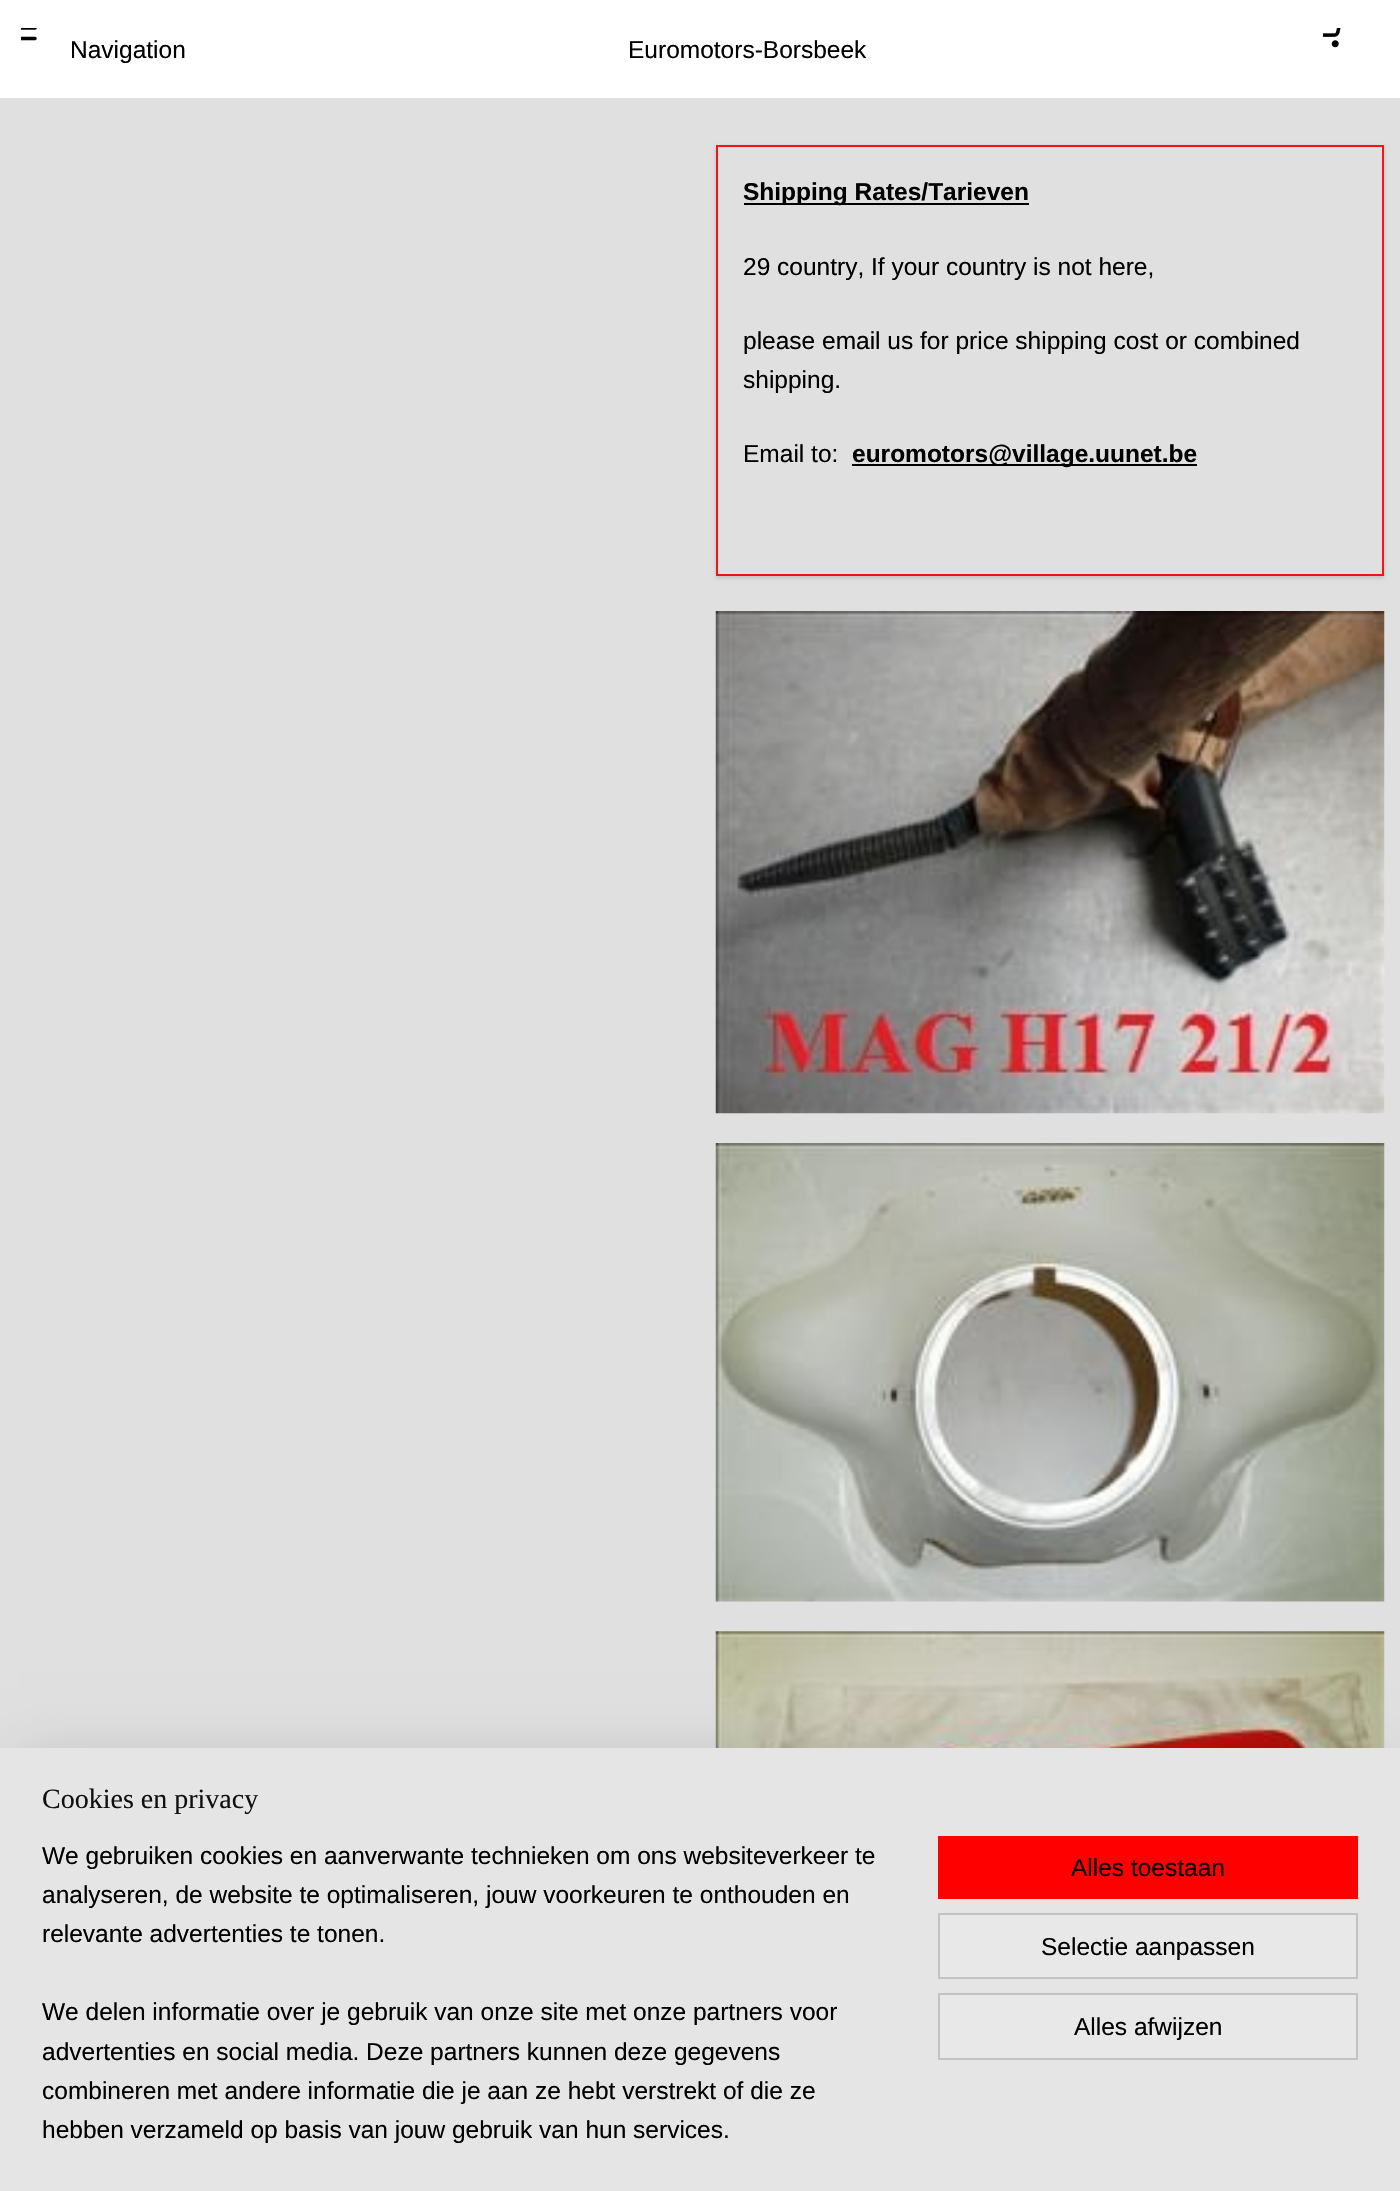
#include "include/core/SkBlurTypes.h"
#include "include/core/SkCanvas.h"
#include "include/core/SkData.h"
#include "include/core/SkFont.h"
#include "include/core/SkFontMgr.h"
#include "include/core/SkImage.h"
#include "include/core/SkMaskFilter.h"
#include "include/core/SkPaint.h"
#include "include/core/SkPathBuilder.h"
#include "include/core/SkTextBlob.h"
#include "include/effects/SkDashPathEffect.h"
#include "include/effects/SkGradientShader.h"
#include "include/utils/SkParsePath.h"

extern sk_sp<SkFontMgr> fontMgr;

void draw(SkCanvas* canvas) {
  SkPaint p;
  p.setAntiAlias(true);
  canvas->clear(SkColorSetRGB(224, 224, 224));
  p.setColor(SK_ColorWHITE);
  canvas->drawRect(SkRect::MakeLTRB(0, 0, 1400, 98), p);
  canvas->drawImageRect(SkImages::DeferredFromEncodedData(SkData::MakeFromFileName("images/1.png")), SkRect::MakeLTRB(1323, 28, 1341, 48), SkSamplingOptions());
  canvas->drawImageRect(SkImages::DeferredFromEncodedData(SkData::MakeFromFileName("images/2.png")), SkRect::MakeLTRB(21, 28, 37, 41), SkSamplingOptions());
  p.setColor(SkColorSetARGB(38, 0, 0, 0));
  p.setMaskFilter(SkMaskFilter::MakeBlur(kNormal_SkBlurStyle, 2));
  canvas->drawRect(SkRect::MakeLTRB(716, 147, 1384, 578), p);
  p.setMaskFilter(nullptr);
  p.setColor(SkColorSetRGB(224, 224, 224));
  canvas->drawRect(SkRect::MakeLTRB(717, 146, 1383, 575), p);
  p.setStyle(SkPaint::kStroke_Style);
  p.setStrokeWidth(2);
  p.setColor(SkColorSetRGB(255, 16, 16));
  canvas->drawRect(SkRect::MakeLTRB(717, 146, 1383, 575), p);
  p.setStyle(SkPaint::kFill_Style);
  p.setColor(SK_ColorBLACK);
  canvas->drawRect(SkRect::MakeLTRB(744, 203, 1029, 205), p);
  canvas->drawRect(SkRect::MakeLTRB(852, 464, 1197, 466), p);
  canvas->drawImageRect(SkImages::DeferredFromEncodedData(SkData::MakeFromFileName("images/3.png")), SkRect::MakeLTRB(715, 611, 1385, 1114), SkSamplingOptions());
  canvas->drawImageRect(SkImages::DeferredFromEncodedData(SkData::MakeFromFileName("images/4.png")), SkRect::MakeLTRB(715, 1143, 1385, 1602), SkSamplingOptions());
  canvas->drawImageRect(SkImages::DeferredFromEncodedData(SkData::MakeFromFileName("images/5.png")), SkRect::MakeLTRB(715, 1631, 1385, 1748), SkSamplingOptions());
  p.setColor(SkColorSetARGB(51, 0, 0, 0));
  p.setMaskFilter(SkMaskFilter::MakeBlur(kNormal_SkBlurStyle, 31.5f));
  canvas->drawRect(SkRect::MakeLTRB(18, 1766, 1383, 2174), p);
  p.setMaskFilter(nullptr);
  p.setColor(SkColorSetRGB(229, 229, 229));
  canvas->drawRect(SkRect::MakeLTRB(0, 1748, 1400, 2191), p);
  p.setColor(SkColorSetRGB(255, 0, 0));
  canvas->drawRect(SkRect::MakeLTRB(938, 1836, 1358, 1899), p);
  p.setColor(SkColorSetRGB(232, 232, 232));
  canvas->drawRect(SkRect::MakeLTRB(939, 1914, 1357, 1978), p);
  p.setStyle(SkPaint::kStroke_Style);
  p.setColor(SkColorSetRGB(195, 195, 195));
  canvas->drawRect(SkRect::MakeLTRB(939, 1914, 1357, 1978), p);
  p.setStyle(SkPaint::kFill_Style);
  p.setColor(SkColorSetRGB(232, 232, 232));
  canvas->drawRect(SkRect::MakeLTRB(939, 1994, 1357, 2059), p);
  p.setStyle(SkPaint::kStroke_Style);
  p.setColor(SkColorSetRGB(195, 195, 195));
  canvas->drawRect(SkRect::MakeLTRB(939, 1994, 1357, 2059), p);
  SkFont font1(fontMgr->matchFamilyStyle("Liberation Sans", SkFontStyle::Normal()), 24.5f);
  font1.setSubpixel(true);
  p.setStyle(SkPaint::kFill_Style);
  p.setColor(SK_ColorBLACK);
  canvas->drawString("Navigation", 70, 58, font1, p);
  canvas->drawString("Euromotors-Borsbeek", 628, 58, font1, p);
  SkFont font2(fontMgr->matchFamilyStyle("Liberation Sans", SkFontStyle::Bold()), 24.5f);
  font2.setSubpixel(true);
  canvas->drawString("Shipping Rates/Tarieven", 743, 200, font2, p);
  canvas->drawString("29 country, If your country is not here,", 743, 275, font1, p);
  canvas->drawString("please email us for price shipping cost or combined", 743, 349, font1, p);
  canvas->drawString("shipping.", 743, 388, font1, p);
  canvas->drawString("Email to:", 743, 462, font1, p);
  canvas->drawString("euromotors@village.uunet.be", 852, 462, font2, p);
  SkFont font3(fontMgr->matchFamilyStyle("Liberation Serif", SkFontStyle::Normal()), 28);
  font3.setSubpixel(true);
  p.setColor(SkColorSetRGB(16, 16, 16));
  canvas->drawString("Cookies en privacy", 42, 1808, font3, p);
  p.setColor(SK_ColorBLACK);
  canvas->drawString("We gebruiken cookies en aanverwante technieken om ons websiteverkeer te", 42, 1864, font1, p);
  canvas->drawString("analyseren, de website te optimaliseren, jouw voorkeuren te onthouden en", 42, 1903, font1, p);
  canvas->drawString("relevante advertenties te tonen.", 42, 1942, font1, p);
  canvas->drawString("We delen informatie over je gebruik van onze site met onze partners voor", 42, 2020, font1, p);
  canvas->drawString("advertenties en social media. Deze partners kunnen deze gegevens", 42, 2060, font1, p);
  canvas->drawString("combineren met andere informatie die je aan ze hebt verstrekt of die ze", 42, 2099, font1, p);
  canvas->drawString("hebben verzameld op basis van jouw gebruik van hun services.", 42, 2138, font1, p);
  canvas->drawString("Alles toestaan", 1071, 1876, font1, p);
  canvas->drawString("Selectie aanpassen", 1041, 1955, font1, p);
  canvas->drawString("Alles afwijzen", 1074, 2035, font1, p);
}
